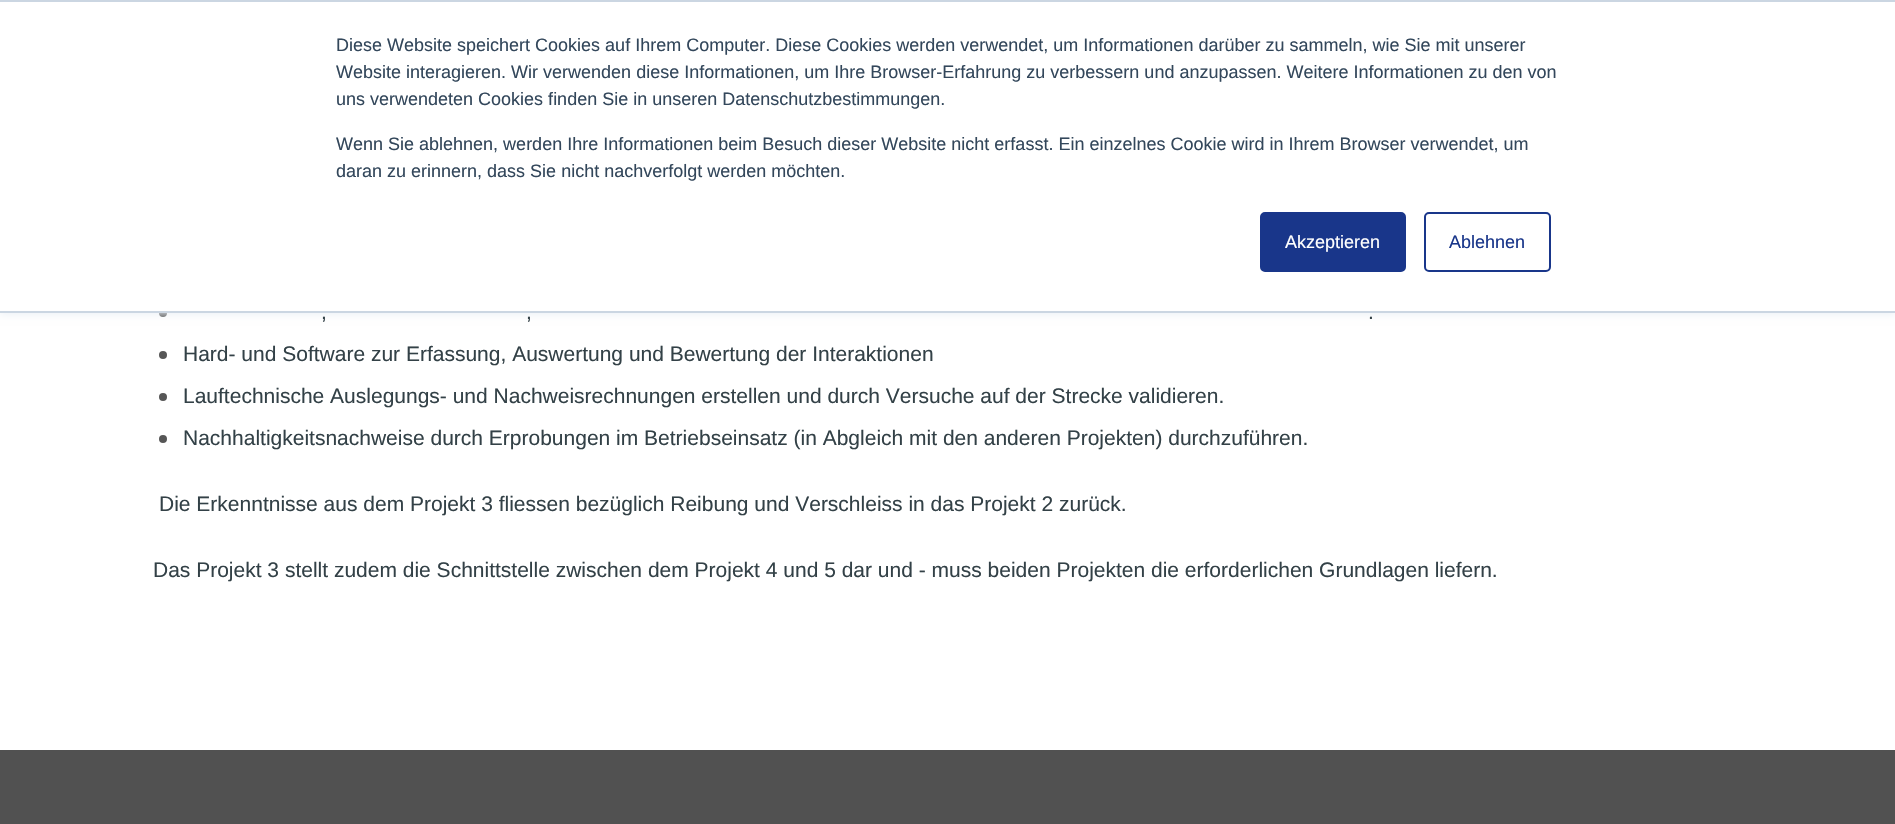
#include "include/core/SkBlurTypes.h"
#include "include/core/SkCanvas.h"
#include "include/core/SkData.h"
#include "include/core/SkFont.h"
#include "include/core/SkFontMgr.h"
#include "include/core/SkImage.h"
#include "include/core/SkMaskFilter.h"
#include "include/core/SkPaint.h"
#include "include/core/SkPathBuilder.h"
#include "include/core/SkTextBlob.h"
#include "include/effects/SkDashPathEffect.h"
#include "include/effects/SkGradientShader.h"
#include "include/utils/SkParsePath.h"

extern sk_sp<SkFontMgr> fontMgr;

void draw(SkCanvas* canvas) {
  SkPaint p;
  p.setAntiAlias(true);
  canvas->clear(SK_ColorWHITE);
  p.setColor(SkColorSetRGB(86, 86, 86));
  canvas->drawCircle(163, 313, 4, p);
  p.setColor(SkColorSetRGB(234, 240, 246));
  p.setMaskFilter(SkMaskFilter::MakeBlur(kNormal_SkBlurStyle, 4));
  canvas->drawRect(SkRect::MakeLTRB(0, 2, 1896, 314), p);
  p.setMaskFilter(nullptr);
  p.setColor(SK_ColorWHITE);
  canvas->drawRect(SkRect::MakeLTRB(0, 2, 1895, 311), p);
  p.setColor(SkColorSetRGB(203, 214, 226));
  canvas->drawRect(SkRect::MakeLTRB(0, 0, 1895, 2), p);
  canvas->drawRect(SkRect::MakeLTRB(0, 311, 1895, 313), p);
  p.setColor(SkColorSetRGB(25, 54, 138));
  canvas->drawRoundRect(SkRect::MakeLTRB(1261, 213, 1405, 271), 4, 4, p);
  p.setStyle(SkPaint::kStroke_Style);
  p.setStrokeWidth(2);
  canvas->drawRoundRect(SkRect::MakeLTRB(1261, 213, 1405, 271), 4, 4, p);
  canvas->drawRoundRect(SkRect::MakeLTRB(1425, 213, 1550, 271), 4, 4, p);
  p.setStyle(SkPaint::kFill_Style);
  p.setColor(SkColorSetRGB(86, 86, 86));
  canvas->drawCircle(163, 355, 4, p);
  canvas->drawCircle(163, 397, 4, p);
  canvas->drawCircle(163, 439, 4, p);
  p.setColor(SkColorSetRGB(81, 81, 81));
  canvas->drawRect(SkRect::MakeLTRB(0, 750, 1895, 824), p);
  SkFont font1(fontMgr->matchFamilyStyle("Liberation Sans", SkFontStyle::Normal()), 18);
  font1.setSubpixel(true);
  p.setColor(SkColorSetRGB(51, 71, 91));
  canvas->drawString("Diese Website speichert Cookies auf Ihrem Computer. Diese Cookies werden verwendet, um Informationen darüber zu sammeln, wie Sie mit unserer", 336, 51, font1, p);
  canvas->drawString("Website interagieren. Wir verwenden diese Informationen, um Ihre Browser-Erfahrung zu verbessern und anzupassen. Weitere Informationen zu den von", 336, 78, font1, p);
  canvas->drawString("uns verwendeten Cookies finden Sie in unseren Datenschutzbestimmungen.", 336, 105, font1, p);
  canvas->drawString("Wenn Sie ablehnen, werden Ihre Informationen beim Besuch dieser Website nicht erfasst. Ein einzelnes Cookie wird in Ihrem Browser verwendet, um", 336, 150, font1, p);
  canvas->drawString("daran zu erinnern, dass Sie nicht nachverfolgt werden möchten.", 336, 177, font1, p);
  p.setColor(SK_ColorWHITE);
  canvas->drawString("Akzeptieren", 1285, 248, font1, p);
  p.setColor(SkColorSetRGB(25, 54, 138));
  canvas->drawString("Ablehnen", 1449, 248, font1, p);
  SkFont font2(fontMgr->matchFamilyStyle("Liberation Sans", SkFontStyle::Normal()), 21);
  font2.setSubpixel(true);
  p.setColor(SkColorSetRGB(51, 65, 71));
  canvas->drawString(",", 321, 319, font2, p);
  canvas->drawString(",", 526, 319, font2, p);
  canvas->drawString(".", 1368, 319, font2, p);
  canvas->drawString("Hard- und Software zur Erfassung, Auswertung und Bewertung der Interaktionen", 183, 361, font2, p);
  canvas->drawString("Lauftechnische Auslegungs- und Nachweisrechnungen erstellen und durch Versuche auf der Strecke validieren.", 183, 403, font2, p);
  canvas->drawString("Nachhaltigkeitsnachweise durch Erprobungen im Betriebseinsatz (in Abgleich mit den anderen Projekten) durchzuführen.", 183, 445, font2, p);
  canvas->drawString("Die Erkenntnisse aus dem Projekt 3 fliessen bezüglich Reibung und Verschleiss in das Projekt 2 zurück.", 159, 511, font2, p);
  canvas->drawString("Das Projekt 3 stellt zudem die Schnittstelle zwischen dem Projekt 4 und 5 dar und - muss beiden Projekten die erforderlichen Grundlagen liefern.", 153, 577, font2, p);
}
